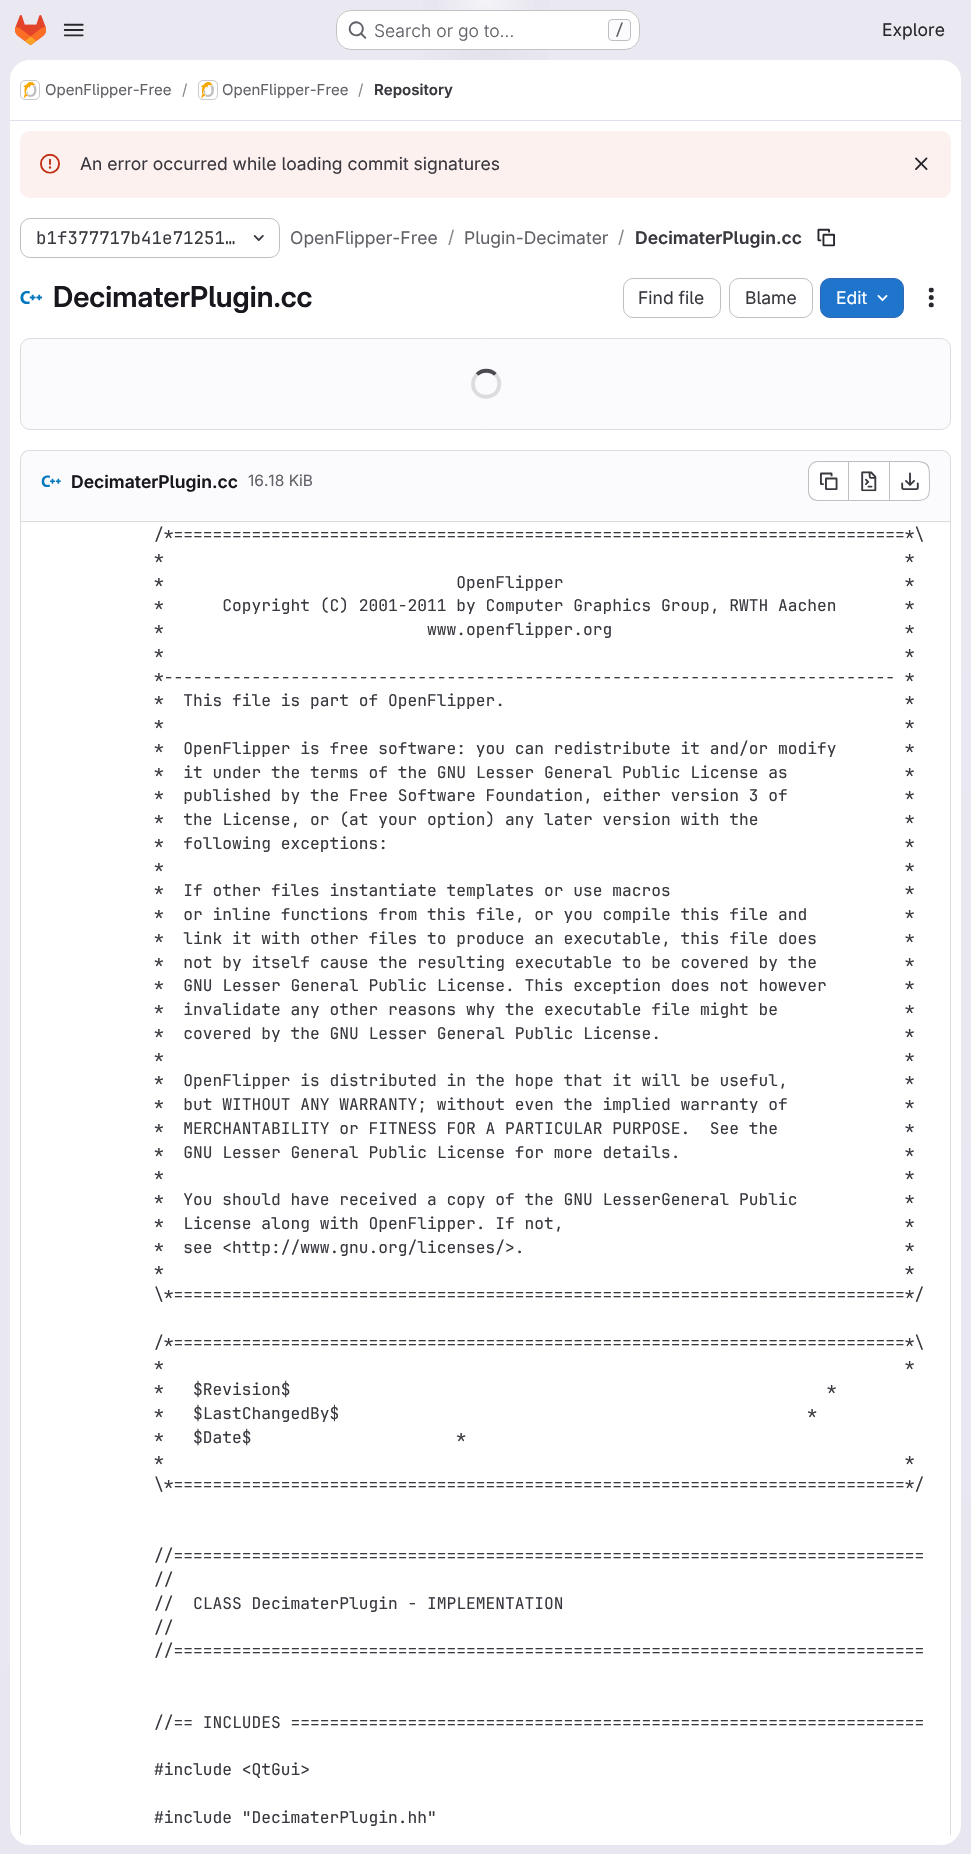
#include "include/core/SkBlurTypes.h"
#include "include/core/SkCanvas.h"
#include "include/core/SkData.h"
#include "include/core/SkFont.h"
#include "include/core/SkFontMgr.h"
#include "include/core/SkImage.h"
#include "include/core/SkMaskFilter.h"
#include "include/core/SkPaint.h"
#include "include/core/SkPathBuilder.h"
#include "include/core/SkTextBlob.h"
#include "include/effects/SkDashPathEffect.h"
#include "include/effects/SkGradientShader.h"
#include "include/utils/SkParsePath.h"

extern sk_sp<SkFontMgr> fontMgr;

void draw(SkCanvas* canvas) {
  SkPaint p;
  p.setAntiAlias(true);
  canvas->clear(SK_ColorWHITE);
  {
    const SkColor colors[] = {SkColorSetRGB(232, 230, 240), SkColorSetRGB(234, 233, 242)};
    const float stops[] = {0, 0.7f};
    const SkPoint ends[] = {{659, 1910}, {312, -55}};
    p.setShader(SkGradientShader::MakeLinear(ends, colors, stops, 2, SkTileMode::kClamp));
    p.setAlpha(255);
  }
  canvas->drawRect(SkRect::MakeLTRB(0, 0, 971, 1854), p);
  {
    const SkColor colors[] = {SkColorSetRGB(228, 226, 237), SkColorSetARGB(0, 228, 226, 237)};
    const float stops[] = {0, 0.18f};
    SkMatrix m = SkMatrix::Translate(486, 0).preScale(486, 1855);
    p.setShader(SkGradientShader::MakeRadial({0, 0}, 1, colors, stops, 2, SkTileMode::kClamp, 0, &m));
    p.setAlpha(255);
  }
  canvas->drawRect(SkRect::MakeLTRB(423, 0, 549, 60), p);
  {
    const SkColor colors[] = {SkColorSetRGB(228, 226, 236), SkColorSetARGB(0, 228, 226, 236)};
    const float stops[] = {0, 0.13f};
    SkMatrix m = SkMatrix::Translate(486, 0).preScale(486, 1855);
    p.setShader(SkGradientShader::MakeRadial({0, 0}, 1, colors, stops, 2, SkTileMode::kClamp, 0, &m));
    p.setAlpha(255);
  }
  canvas->drawRect(SkRect::MakeLTRB(460, 8, 508, 59), p);
  {
    const SkColor colors[] = {SkColorSetARGB(153, 255, 255, 255), SkColorSetARGB(0, 255, 255, 255)};
    const float stops[] = {0, 0.03f};
    p.setShader(SkGradientShader::MakeRadial({486, 0}, 1918, colors, stops, 2, SkTileMode::kClamp));
    p.setAlpha(255);
  }
  canvas->drawRect(SkRect::MakeLTRB(438, 0, 534, 49), p);
  canvas->drawImageRect(SkImages::DeferredFromEncodedData(SkData::MakeFromFileName("images/1.png")), SkRect::MakeLTRB(15, 15, 46, 45), SkSamplingOptions());
  canvas->drawImageRect(SkImages::DeferredFromEncodedData(SkData::MakeFromFileName("images/2.png")), SkRect::MakeLTRB(63, 23, 84, 37), SkSamplingOptions());
  p.setShader(nullptr);
  p.setColor(SK_ColorWHITE);
  canvas->drawRoundRect(SkRect::MakeLTRB(336, 10, 640, 50), 15, 15, p);
  p.setStyle(SkPaint::kStroke_Style);
  p.setStrokeWidth(1);
  p.setColor(SkColorSetARGB(61, 5, 5, 6));
  canvas->drawRoundRect(SkRect::MakeLTRB(336.5f, 10.5f, 639.5f, 49.5f), 14.5f, 14.5f, p);
  canvas->drawImageRect(SkImages::DeferredFromEncodedData(SkData::MakeFromFileName("images/3.png")), SkRect::MakeLTRB(348, 21, 367, 39), SkSamplingOptions());
  p.setStyle(SkPaint::kFill_Style);
  p.setColor(SkColorSetRGB(251, 250, 253));
  canvas->drawRoundRect(SkRect::MakeLTRB(608.5f, 19.5f, 630.5f, 40.5f), 3.5f, 3.5f, p);
  p.setStyle(SkPaint::kStroke_Style);
  p.setColor(SkColorSetRGB(191, 191, 195));
  canvas->drawRoundRect(SkRect::MakeLTRB(608.5f, 19.5f, 630.5f, 40.5f), 3.5f, 3.5f, p);
  p.setStyle(SkPaint::kFill_Style);
  p.setColor(SK_ColorWHITE);
  canvas->drawRoundRect(SkRect::MakeLTRB(10, 60, 961, 1845), 20, 20, p);
  canvas->drawPath(SkPathBuilder().moveTo(30, 60).lineTo(941, 60).cubicTo(952, 60, 961, 69, 961, 80).lineTo(961, 121).lineTo(10, 121).lineTo(10, 80).cubicTo(10, 69, 19, 60, 30, 60).close().detach(), p);
  p.setColor(SkColorSetRGB(225, 223, 236));
  canvas->drawRect(SkRect::MakeLTRB(10, 120, 961, 121), p);
  p.setStyle(SkPaint::kStroke_Style);
  p.setColor(SkColorSetRGB(220, 220, 222));
  canvas->drawRoundRect(SkRect::MakeLTRB(20.5f, 80.5f, 39.5f, 99.5f), 4.5f, 4.5f, p);
  canvas->drawImageRect(SkImages::DeferredFromEncodedData(SkData::MakeFromFileName("images/4.png")), SkRect::MakeLTRB(23, 82, 37, 98), SkSamplingOptions());
  p.setColor(SkColorSetARGB(20, 5, 5, 6));
  canvas->drawRoundRect(SkRect::MakeLTRB(20.5f, 80.5f, 39.5f, 99.5f), 4.5f, 4.5f, p);
  p.setColor(SkColorSetRGB(220, 220, 222));
  canvas->drawRoundRect(SkRect::MakeLTRB(198.5f, 80.5f, 217.5f, 99.5f), 4.5f, 4.5f, p);
  canvas->drawImageRect(SkImages::DeferredFromEncodedData(SkData::MakeFromFileName("images/5.png")), SkRect::MakeLTRB(201, 82, 214, 98), SkSamplingOptions());
  p.setColor(SkColorSetARGB(20, 5, 5, 6));
  canvas->drawRoundRect(SkRect::MakeLTRB(198.5f, 80.5f, 217.5f, 99.5f), 4.5f, 4.5f, p);
  p.setStyle(SkPaint::kFill_Style);
  p.setColor(SkColorSetRGB(252, 241, 239));
  canvas->drawRoundRect(SkRect::MakeLTRB(20, 131, 951, 198), 10, 10, p);
  canvas->drawImageRect(SkImages::DeferredFromEncodedData(SkData::MakeFromFileName("images/6.png")), SkRect::MakeLTRB(40, 153, 60, 174), SkSamplingOptions());
  canvas->drawImageRect(SkImages::DeferredFromEncodedData(SkData::MakeFromFileName("images/7.png")), SkRect::MakeLTRB(915, 157, 928, 170), SkSamplingOptions());
  p.setStyle(SkPaint::kStroke_Style);
  p.setColor(SkColorSetRGB(191, 191, 195));
  canvas->drawRoundRect(SkRect::MakeLTRB(20.5f, 218.5f, 279.5f, 257.5f), 9.5f, 9.5f, p);
  canvas->drawImageRect(SkImages::DeferredFromEncodedData(SkData::MakeFromFileName("images/8.png")), SkRect::MakeLTRB(253, 235, 264, 241), SkSamplingOptions());
  canvas->drawImageRect(SkImages::DeferredFromEncodedData(SkData::MakeFromFileName("images/9.png")), SkRect::MakeLTRB(817, 228, 835, 247), SkSamplingOptions());
  canvas->drawImageRect(SkImages::DeferredFromEncodedData(SkData::MakeFromFileName("images/10.png")), SkRect::MakeLTRB(20, 291, 42, 304), SkSamplingOptions());
  canvas->drawRoundRect(SkRect::MakeLTRB(623.5f, 278.5f, 720.5f, 317.5f), 9.5f, 9.5f, p);
  canvas->drawRoundRect(SkRect::MakeLTRB(729.5f, 278.5f, 812.5f, 317.5f), 9.5f, 9.5f, p);
  p.setStyle(SkPaint::kFill_Style);
  p.setColor(SkColorSetRGB(31, 117, 203));
  canvas->drawRoundRect(SkRect::MakeLTRB(820.5f, 278.5f, 903.5f, 317.5f), 9.5f, 9.5f, p);
  p.setStyle(SkPaint::kStroke_Style);
  p.setColor(SkColorSetRGB(47, 104, 180));
  canvas->drawRoundRect(SkRect::MakeLTRB(820.5f, 278.5f, 903.5f, 317.5f), 9.5f, 9.5f, p);
  canvas->drawImageRect(SkImages::DeferredFromEncodedData(SkData::MakeFromFileName("images/11.png")), SkRect::MakeLTRB(877, 295, 888, 301), SkSamplingOptions());
  canvas->drawImageRect(SkImages::DeferredFromEncodedData(SkData::MakeFromFileName("images/12.png")), SkRect::MakeLTRB(928, 287, 934, 308), SkSamplingOptions());
  p.setStyle(SkPaint::kFill_Style);
  p.setColor(SkColorSetRGB(251, 250, 253));
  canvas->drawRoundRect(SkRect::MakeLTRB(20.5f, 338.5f, 950.5f, 429.5f), 9.5f, 9.5f, p);
  p.setStyle(SkPaint::kStroke_Style);
  p.setColor(SkColorSetRGB(220, 220, 222));
  canvas->drawRoundRect(SkRect::MakeLTRB(20.5f, 338.5f, 950.5f, 429.5f), 9.5f, 9.5f, p);
  p.setStrokeWidth(3.8f);
  p.setColor(SkColorSetRGB(76, 75, 81));
  canvas->drawPath(SkPathBuilder().moveTo(477, 374.5f).cubicTo(482, 369.5f, 490.5f, 369.5f, 495.5f, 374.5f).detach(), p);
  p.setColor(SkColorSetRGB(220, 220, 222));
  canvas->drawPath(SkPathBuilder().moveTo(495.5f, 374.5f).cubicTo(498.5f, 377.5f, 500, 382, 499, 386.5f).cubicTo(496, 401.5f, 473, 399.5f, 473, 384).cubicTo(473, 380.5f, 474.5f, 377, 477, 374.5f).detach(), p);
  canvas->save();
  canvas->clipRect(SkRect::MakeLTRB(10, 121, 961, 1835));
  p.setStyle(SkPaint::kFill_Style);
  canvas->drawPath(SkPathBuilder().moveTo(30, 450).cubicTo(24, 450, 20, 454, 20, 460).lineTo(20, 1842).lineTo(21, 1843).lineTo(21, 460).cubicTo(21, 455, 25, 451, 30, 451).lineTo(941, 451).cubicTo(946, 451, 950, 455, 950, 460).lineTo(950, 1843).lineTo(951, 1842).lineTo(951, 460).cubicTo(951, 454, 947, 450, 941, 450).close().detach(), p);
  canvas->restore();
  p.setColor(SkColorSetRGB(251, 250, 253));
  canvas->drawPath(SkPathBuilder().moveTo(30, 451).lineTo(941, 451).cubicTo(946, 451, 950, 455, 950, 460).lineTo(950, 523).lineTo(21, 523).lineTo(21, 460).cubicTo(21, 455, 25, 451, 30, 451).close().detach(), p);
  p.setColor(SkColorSetRGB(220, 220, 222));
  canvas->drawRect(SkRect::MakeLTRB(21, 521, 950, 522), p);
  canvas->drawImageRect(SkImages::DeferredFromEncodedData(SkData::MakeFromFileName("images/13.png")), SkRect::MakeLTRB(41, 475, 61, 487), SkSamplingOptions());
  p.setColor(SK_ColorWHITE);
  canvas->drawPath(SkPathBuilder().moveTo(818, 463).lineTo(848, 463).lineTo(848, 500).lineTo(818, 500).cubicTo(813, 500, 809, 496, 809, 491).lineTo(809, 472).cubicTo(809, 467, 813, 463, 818, 463).close().detach(), p);
  p.setColor(SkColorSetRGB(191, 191, 195));
  canvas->drawPath(SkPathBuilder(SkPathFillType::kEvenOdd).moveTo(818, 461).lineTo(848, 461).lineTo(848, 501).lineTo(818, 501).cubicTo(812, 501, 808, 497, 808, 491).lineTo(808, 471).cubicTo(808, 466, 812, 461, 818, 461).close().moveTo(818, 462).lineTo(848, 462).lineTo(848, 500).lineTo(818, 500).cubicTo(813, 500, 809, 496, 809, 491).lineTo(809, 471).cubicTo(809, 466, 813, 462, 818, 462).close().detach(), p);
  canvas->drawImageRect(SkImages::DeferredFromEncodedData(SkData::MakeFromFileName("images/14.png")), SkRect::MakeLTRB(820, 472, 838, 490), SkSamplingOptions());
  p.setColor(SK_ColorWHITE);
  canvas->drawRect(SkRect::MakeLTRB(849, 463, 889, 500), p);
  p.setColor(SkColorSetRGB(191, 191, 195));
  canvas->drawRect(SkRect::MakeLTRB(849, 461, 889, 462), p);
  canvas->drawRect(SkRect::MakeLTRB(849, 500, 889, 501), p);
  canvas->drawRect(SkRect::MakeLTRB(848, 461, 849, 501), p);
  canvas->drawImageRect(SkImages::DeferredFromEncodedData(SkData::MakeFromFileName("images/15.png")), SkRect::MakeLTRB(861, 471, 877, 492), SkSamplingOptions());
  p.setColor(SK_ColorWHITE);
  canvas->drawPath(SkPathBuilder().moveTo(890, 463).lineTo(920, 463).cubicTo(925, 463, 929, 467, 929, 472).lineTo(929, 491).cubicTo(929, 496, 925, 500, 920, 500).lineTo(890, 500).close().detach(), p);
  p.setColor(SkColorSetRGB(191, 191, 195));
  canvas->drawPath(SkPathBuilder(SkPathFillType::kEvenOdd).moveTo(890, 461).lineTo(915, 461).cubicTo(931, 461, 930, 467, 930, 481).cubicTo(930, 495, 931, 501, 915, 501).lineTo(890, 501).close().moveTo(890, 462).lineTo(915, 462).cubicTo(930, 462, 929, 468, 929, 481).cubicTo(929, 495, 930, 500, 915, 500).lineTo(890, 500).close().detach(), p);
  canvas->drawRect(SkRect::MakeLTRB(889, 461, 890, 501), p);
  canvas->drawImageRect(SkImages::DeferredFromEncodedData(SkData::MakeFromFileName("images/16.png")), SkRect::MakeLTRB(901, 472, 919, 490), SkSamplingOptions());
  SkFont font1(fontMgr->matchFamilyStyle("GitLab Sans", SkFontStyle(300, SkFontStyle::kNormal_Width, SkFontStyle::kUpright_Slant)), 17.5f);
  font1.setSubpixel(true);
  p.setColor(SkColorSetRGB(98, 97, 104));
  canvas->drawString("Search or go to…", 374, 37, font1, p);
  SkFont font2(fontMgr->matchFamilyStyle("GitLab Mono", SkFontStyle(500, SkFontStyle::kNormal_Width, SkFontStyle::kUpright_Slant)), 15);
  font2.setSubpixel(true);
  canvas->drawString("/", 615, 35, font2, p);
  SkFont font3(fontMgr->matchFamilyStyle("GitLab Sans", SkFontStyle::Normal()), 17.5f);
  font3.setSubpixel(true);
  p.setColor(SkColorSetRGB(40, 39, 45));
  canvas->drawString("Explore", 882, 36, font3, p);
  SkFont font4(fontMgr->matchFamilyStyle("GitLab Sans", SkFontStyle::Normal()), 15);
  font4.setSubpixel(true);
  p.setColor(SkColorSetRGB(98, 97, 104));
  canvas->drawString("OpenFlipper-Free", 45, 95, font4, p);
  p.setColor(SkColorSetRGB(137, 136, 141));
  canvas->drawString("/", 182, 95, font4, p);
  p.setColor(SkColorSetRGB(98, 97, 104));
  canvas->drawString("OpenFlipper-Free", 222, 95, font4, p);
  p.setColor(SkColorSetRGB(137, 136, 141));
  canvas->drawString("/", 358, 95, font4, p);
  SkFont font5(fontMgr->matchFamilyStyle("GitLab Sans", SkFontStyle(600, SkFontStyle::kNormal_Width, SkFontStyle::kUpright_Slant)), 15);
  font5.setSubpixel(true);
  p.setColor(SkColorSetRGB(58, 56, 63));
  canvas->drawString("Repository", 374, 95, font5, p);
  canvas->drawString("An error occurred while loading commit signatures", 80, 170, font3, p);
  SkFont font6(fontMgr->matchFamilyStyle("GitLab Mono", SkFontStyle::Normal()), 17.5f);
  font6.setSubpixel(true);
  canvas->drawString("b1f377717b41e71251…", 36, 244, font6, p);
  p.setColor(SkColorSetRGB(98, 97, 104));
  canvas->drawString("OpenFlipper-Free", 290, 244, font3, p);
  p.setColor(SkColorSetRGB(137, 136, 141));
  canvas->drawString("/", 448, 243, font3, p);
  p.setColor(SkColorSetRGB(98, 97, 104));
  canvas->drawString("Plugin-Decimater", 464, 244, font3, p);
  p.setColor(SkColorSetRGB(137, 136, 141));
  canvas->drawString("/", 618, 243, font3, p);
  SkFont font7(fontMgr->matchFamilyStyle("GitLab Sans", SkFontStyle(600, SkFontStyle::kNormal_Width, SkFontStyle::kUpright_Slant)), 17.5f);
  font7.setSubpixel(true);
  p.setColor(SkColorSetRGB(58, 56, 63));
  canvas->drawString("DecimaterPlugin.cc", 635, 244, font7, p);
  SkFont font8(fontMgr->matchFamilyStyle("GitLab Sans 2", SkFontStyle(600, SkFontStyle::kNormal_Width, SkFontStyle::kUpright_Slant)), 28.75f);
  font8.setSubpixel(true);
  p.setColor(SkColorSetRGB(24, 23, 29));
  canvas->drawString("DecimaterPlugin.cc", 53, 307, font8, p);
  p.setColor(SkColorSetRGB(58, 56, 63));
  canvas->drawString("Find file", 638, 304, font3, p);
  canvas->drawString("Blame", 745, 304, font3, p);
  p.setColor(SK_ColorWHITE);
  canvas->drawString("Edit", 836, 304, font3, p);
  p.setColor(SkColorSetRGB(24, 23, 29));
  canvas->drawString("DecimaterPlugin.cc", 71, 488, font7, p);
  SkFont font9(fontMgr->matchFamilyStyle("GitLab Sans", SkFontStyle::Normal()), 15.5f);
  font9.setSubpixel(true);
  p.setColor(SkColorSetRGB(98, 97, 104));
  canvas->drawString("16.18 KiB", 248, 486, font9, p);
  SkFont font10(fontMgr->matchFamilyStyle("GitLab Mono", SkFontStyle::Normal()), 16.25f);
  font10.setSubpixel(true);
  p.setColor(SkColorSetRGB(58, 56, 63));
  canvas->drawString("/*===========================================================================*\\", 154, 540, font10, p);
  canvas->drawString("*                                                                            *", 154, 564, font10, p);
  canvas->drawString("*                              OpenFlipper                                   *", 154, 588, font10, p);
  canvas->drawString("*      Copyright (C) 2001-2011 by Computer Graphics Group, RWTH Aachen       *", 154, 611, font10, p);
  canvas->drawString("*                           www.openflipper.org                              *", 154, 635, font10, p);
  canvas->drawString("*                                                                            *", 154, 659, font10, p);
  canvas->drawString("*--------------------------------------------------------------------------- *", 154, 683, font10, p);
  canvas->drawString("*  This file is part of OpenFlipper.                                         *", 154, 706, font10, p);
  canvas->drawString("*                                                                            *", 154, 730, font10, p);
  canvas->drawString("*  OpenFlipper is free software: you can redistribute it and/or modify       *", 154, 754, font10, p);
  canvas->drawString("*  it under the terms of the GNU Lesser General Public License as            *", 154, 778, font10, p);
  canvas->drawString("*  published by the Free Software Foundation, either version 3 of            *", 154, 801, font10, p);
  canvas->drawString("*  the License, or (at your option) any later version with the               *", 154, 825, font10, p);
  canvas->drawString("*  following exceptions:                                                     *", 154, 849, font10, p);
  canvas->drawString("*                                                                            *", 154, 873, font10, p);
  canvas->drawString("*  If other files instantiate templates or use macros                        *", 154, 896, font10, p);
  canvas->drawString("*  or inline functions from this file, or you compile this file and          *", 154, 920, font10, p);
  canvas->drawString("*  link it with other files to produce an executable, this file does         *", 154, 944, font10, p);
  canvas->drawString("*  not by itself cause the resulting executable to be covered by the         *", 154, 968, font10, p);
  canvas->drawString("*  GNU Lesser General Public License. This exception does not however        *", 154, 991, font10, p);
  canvas->drawString("*  invalidate any other reasons why the executable file might be             *", 154, 1015, font10, p);
  canvas->drawString("*  covered by the GNU Lesser General Public License.                         *", 154, 1039, font10, p);
  canvas->drawString("*                                                                            *", 154, 1063, font10, p);
  canvas->drawString("*  OpenFlipper is distributed in the hope that it will be useful,            *", 154, 1086, font10, p);
  canvas->drawString("*  but WITHOUT ANY WARRANTY; without even the implied warranty of            *", 154, 1110, font10, p);
  canvas->drawString("*  MERCHANTABILITY or FITNESS FOR A PARTICULAR PURPOSE.  See the             *", 154, 1134, font10, p);
  canvas->drawString("*  GNU Lesser General Public License for more details.                       *", 154, 1158, font10, p);
  canvas->drawString("*                                                                            *", 154, 1181, font10, p);
  canvas->drawString("*  You should have received a copy of the GNU LesserGeneral Public           *", 154, 1205, font10, p);
  canvas->drawString("*  License along with OpenFlipper. If not,                                   *", 154, 1229, font10, p);
  canvas->drawString("*  see <http://www.gnu.org/licenses/>.                                       *", 154, 1253, font10, p);
  canvas->drawString("*                                                                            *", 154, 1276, font10, p);
  canvas->drawString("\\*===========================================================================*/", 154, 1300, font10, p);
  canvas->drawString("/*===========================================================================*\\", 154, 1348, font10, p);
  canvas->drawString("*                                                                            *", 154, 1371, font10, p);
  canvas->drawString("*   $Revision$                                                       *", 154, 1395, font10, p);
  canvas->drawString("*   $LastChangedBy$                                                *", 154, 1419, font10, p);
  canvas->drawString("*   $Date$                     *", 154, 1443, font10, p);
  canvas->drawString("*                                                                            *", 154, 1466, font10, p);
  canvas->drawString("\\*===========================================================================*/", 154, 1490, font10, p);
  canvas->drawString("//=============================================================================", 154, 1561, font10, p);
  canvas->drawString("//", 154, 1585, font10, p);
  canvas->drawString("//  CLASS DecimaterPlugin - IMPLEMENTATION", 154, 1609, font10, p);
  canvas->drawString("//", 154, 1633, font10, p);
  canvas->drawString("//=============================================================================", 154, 1656, font10, p);
  canvas->drawString("//== INCLUDES =================================================================", 154, 1728, font10, p);
  canvas->drawString("#include <QtGui>", 154, 1775, font10, p);
  canvas->drawString("#include \"DecimaterPlugin.hh\"", 154, 1823, font10, p);
}
